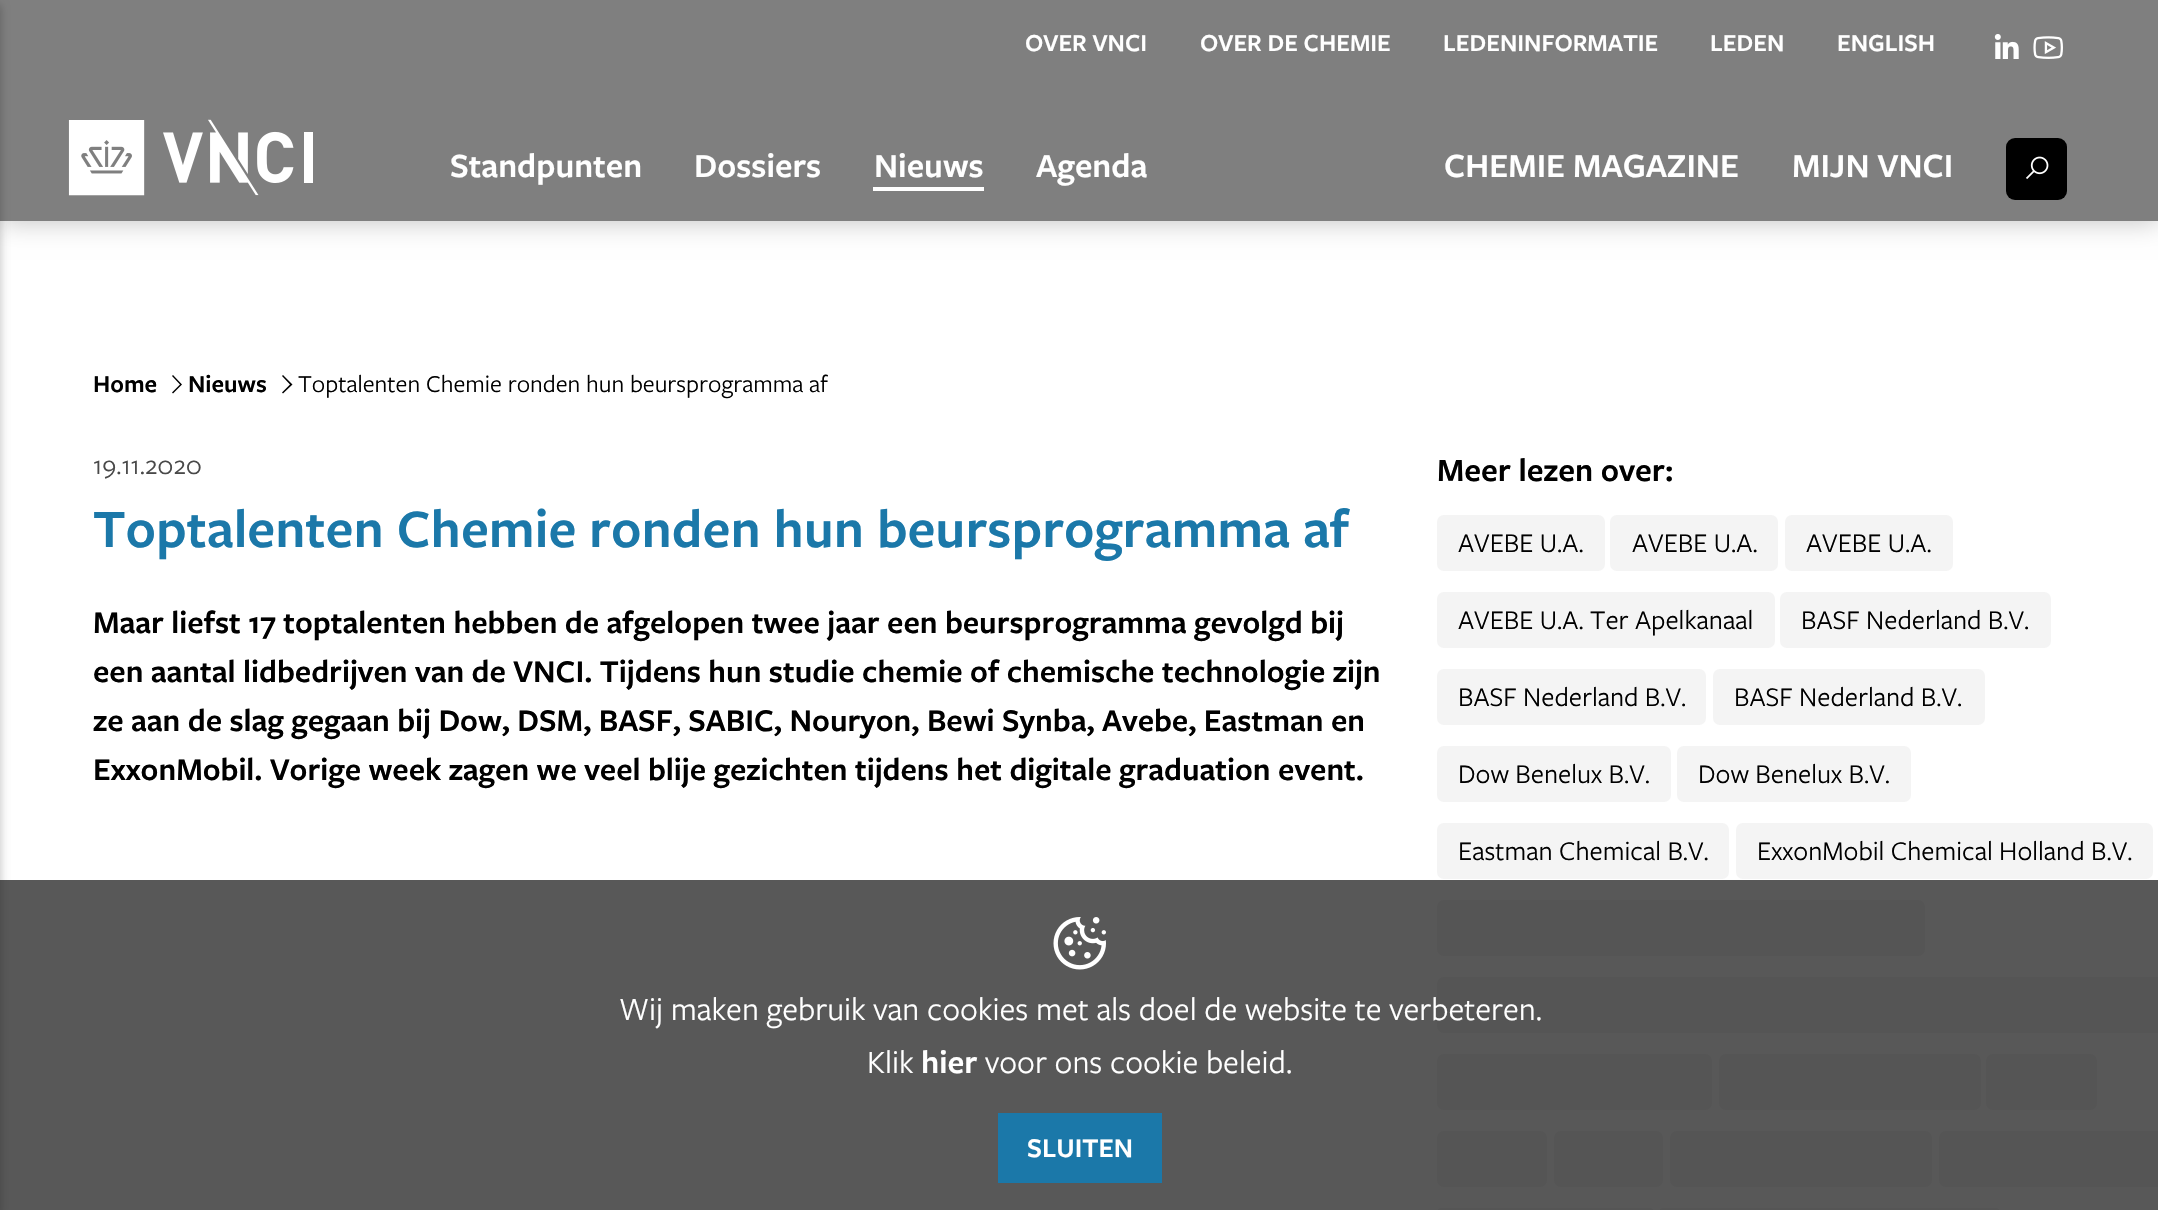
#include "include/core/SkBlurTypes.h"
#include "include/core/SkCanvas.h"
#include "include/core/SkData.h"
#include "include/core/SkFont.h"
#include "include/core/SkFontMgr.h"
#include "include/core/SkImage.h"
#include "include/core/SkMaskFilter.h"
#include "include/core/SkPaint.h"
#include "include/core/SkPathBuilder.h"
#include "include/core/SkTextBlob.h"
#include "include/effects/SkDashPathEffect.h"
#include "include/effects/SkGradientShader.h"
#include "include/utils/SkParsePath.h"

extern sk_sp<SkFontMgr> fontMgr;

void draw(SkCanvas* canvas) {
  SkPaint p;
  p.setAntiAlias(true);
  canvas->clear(SK_ColorWHITE);
  p.setColor(SkColorSetARGB(26, 0, 0, 0));
  p.setMaskFilter(SkMaskFilter::MakeBlur(kNormal_SkBlurStyle, 5));
  canvas->drawRect(SkRect::MakeLTRB(-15, 5, 0, 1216), p);
  p.setMaskFilter(nullptr);
  p.setColor(SkColorSetARGB(41, 0, 0, 0));
  p.setMaskFilter(SkMaskFilter::MakeBlur(kNormal_SkBlurStyle, 5));
  canvas->drawRect(SkRect::MakeLTRB(-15, 5, 0, 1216), p);
  p.setMaskFilter(nullptr);
  canvas->save();
  canvas->clipPath(SkPathBuilder(SkPathFillType::kEvenOdd).moveTo(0, 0).lineTo(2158, 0).lineTo(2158, 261).lineTo(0, 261).close().moveTo(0, 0).lineTo(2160, 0).lineTo(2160, 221).lineTo(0, 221).close().detach(), true);
  p.setColor(SkColorSetARGB(64, 0, 0, 0));
  p.setMaskFilter(SkMaskFilter::MakeBlur(kNormal_SkBlurStyle, 13));
  canvas->drawRect(SkRect::MakeLTRB(0, 0, 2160, 221), p);
  p.setMaskFilter(nullptr);
  canvas->restore();
  p.setColor(SkColorSetARGB(128, 0, 0, 0));
  canvas->drawRect(SkRect::MakeLTRB(0, 0, 2158, 221), p);
  canvas->drawImageRect(SkImages::DeferredFromEncodedData(SkData::MakeFromFileName("images/1.png")), SkRect::MakeLTRB(1994, 34, 2019, 59), SkSamplingOptions());
  canvas->drawImageRect(SkImages::DeferredFromEncodedData(SkData::MakeFromFileName("images/2.png")), SkRect::MakeLTRB(2033, 36, 2063, 59), SkSamplingOptions());
  canvas->drawImageRect(SkImages::DeferredFromEncodedData(SkData::MakeFromFileName("images/3.png")), SkRect::MakeLTRB(68, 119, 313, 196), SkSamplingOptions());
  p.setColor(SK_ColorWHITE);
  canvas->drawRect(SkRect::MakeLTRB(873, 187, 984, 191), p);
  p.setColor(SK_ColorBLACK);
  canvas->drawRoundRect(SkRect::MakeLTRB(2006, 138, 2067, 200), 9, 9, p);
  canvas->drawImageRect(SkImages::DeferredFromEncodedData(SkData::MakeFromFileName("images/4.png")), SkRect::MakeLTRB(2026, 156, 2049, 179), SkSamplingOptions());
  canvas->drawPath(SkPathBuilder().moveTo(173, 375).lineTo(172, 376).lineTo(180, 384.5f).lineTo(172, 392.5f).lineTo(173, 393.5f).lineTo(182, 384.5f).close().detach(), p);
  canvas->drawPath(SkPathBuilder().moveTo(283, 375).lineTo(282, 376).lineTo(290, 384.5f).lineTo(282, 392.5f).lineTo(283, 393.5f).lineTo(292.5f, 384.5f).close().detach(), p);
  p.setColor(SkColorSetRGB(244, 244, 244));
  canvas->drawRoundRect(SkRect::MakeLTRB(1437, 515, 1605, 571), 7, 7, p);
  canvas->drawRoundRect(SkRect::MakeLTRB(1610, 515, 1778, 571), 7, 7, p);
  canvas->drawRoundRect(SkRect::MakeLTRB(1785, 515, 1953, 571), 7, 7, p);
  canvas->drawRoundRect(SkRect::MakeLTRB(1437, 592, 1775, 648), 7, 7, p);
  canvas->drawRoundRect(SkRect::MakeLTRB(1780, 592, 2051, 648), 7, 7, p);
  canvas->drawRoundRect(SkRect::MakeLTRB(1437, 669, 1706, 725), 7, 7, p);
  canvas->drawRoundRect(SkRect::MakeLTRB(1713, 669, 1985, 725), 7, 7, p);
  canvas->drawRoundRect(SkRect::MakeLTRB(1437, 746, 1671, 802), 7, 7, p);
  canvas->drawRoundRect(SkRect::MakeLTRB(1677, 746, 1911, 802), 7, 7, p);
  canvas->drawRoundRect(SkRect::MakeLTRB(1437, 823, 1729, 879), 7, 7, p);
  canvas->drawRoundRect(SkRect::MakeLTRB(1736, 823, 2153, 879), 7, 7, p);
  canvas->drawRoundRect(SkRect::MakeLTRB(1437, 900, 1925, 956), 7, 7, p);
  canvas->drawRoundRect(SkRect::MakeLTRB(1437, 977, 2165, 1033), 7, 7, p);
  canvas->drawRoundRect(SkRect::MakeLTRB(1437, 1054, 1712, 1110), 7, 7, p);
  canvas->drawRoundRect(SkRect::MakeLTRB(1719, 1054, 1981, 1110), 7, 7, p);
  canvas->drawRoundRect(SkRect::MakeLTRB(1986, 1054, 2097, 1110), 7, 7, p);
  canvas->drawRoundRect(SkRect::MakeLTRB(1437, 1131, 1547, 1187), 7, 7, p);
  canvas->drawRoundRect(SkRect::MakeLTRB(1554, 1131, 1663, 1187), 7, 7, p);
  canvas->drawRoundRect(SkRect::MakeLTRB(1670, 1131, 1932, 1187), 7, 7, p);
  canvas->drawRoundRect(SkRect::MakeLTRB(1939, 1131, 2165, 1187), 7, 7, p);
  canvas->drawRoundRect(SkRect::MakeLTRB(1437, 1208, 1654, 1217), 7, 7, p);
  canvas->drawRoundRect(SkRect::MakeLTRB(1659, 1208, 2000, 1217), 7, 7, p);
  p.setColor(SkColorSetARGB(179, 17, 17, 17));
  canvas->drawRect(SkRect::MakeLTRB(0, 880, 2158, 1210), p);
  canvas->drawImageRect(SkImages::DeferredFromEncodedData(SkData::MakeFromFileName("images/5.png")), SkRect::MakeLTRB(1053, 917, 1106, 970), SkSamplingOptions());
  p.setColor(SkColorSetRGB(27, 120, 169));
  canvas->drawRect(SkRect::MakeLTRB(998, 1113, 1162, 1183), p);
  SkFont font1(fontMgr->matchFamilyStyle("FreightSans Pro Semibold", SkFontStyle(600, SkFontStyle::kNormal_Width, SkFontStyle::kUpright_Slant)), 25.2f);
  font1.setSubpixel(true);
  p.setColor(SK_ColorWHITE);
  canvas->drawString("OVER VNCI", 1025, 51, font1, p);
  canvas->drawString("OVER DE CHEMIE", 1200, 51, font1, p);
  canvas->drawString("LEDENINFORMATIE", 1443, 51, font1, p);
  canvas->drawString("LEDEN", 1710, 51, font1, p);
  canvas->drawString("ENGLISH", 1837, 51, font1, p);
  SkFont font2(fontMgr->matchFamilyStyle("FreightSans Pro Semibold", SkFontStyle(600, SkFontStyle::kNormal_Width, SkFontStyle::kUpright_Slant)), 35);
  font2.setSubpixel(true);
  canvas->drawString("Standpunten", 450, 177, font2, p);
  canvas->drawString("Dossiers", 694, 177, font2, p);
  canvas->drawString("Nieuws", 874, 177, font2, p);
  canvas->drawString("Agenda", 1036, 177, font2, p);
  canvas->drawString("CHEMIE MAGAZINE", 1444, 177, font2, p);
  canvas->drawString("MIJN VNCI", 1792, 177, font2, p);
  p.setColor(SK_ColorBLACK);
  canvas->drawString("Home", 93, 392, font1, p);
  canvas->drawString("Nieuws", 188, 392, font1, p);
  SkFont font3(fontMgr->matchFamilyStyle("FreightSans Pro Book", SkFontStyle::Normal()), 25.2f);
  font3.setSubpixel(true);
  canvas->drawString("Toptalenten Chemie ronden hun beursprogramma af", 298, 392, font3, p);
  SkFont font4(fontMgr->matchFamilyStyle("FreightSans Pro Book", SkFontStyle::Normal()), 28);
  font4.setSubpixel(true);
  p.setColor(SkColorSetRGB(73, 73, 73));
  canvas->drawString("19.11.2020", 93, 474, font4, p);
  SkFont font5(fontMgr->matchFamilyStyle("FreightSans Pro Semibold", SkFontStyle(600, SkFontStyle::kNormal_Width, SkFontStyle::kUpright_Slant)), 56);
  font5.setSubpixel(true);
  p.setColor(SkColorSetRGB(27, 120, 169));
  canvas->drawString("Toptalenten Chemie ronden hun beursprogramma af", 93, 547, font5, p);
  SkFont font6(fontMgr->matchFamilyStyle("FreightSans Pro Semibold", SkFontStyle(600, SkFontStyle::kNormal_Width, SkFontStyle::kUpright_Slant)), 32.75f);
  font6.setSubpixel(true);
  p.setColor(SK_ColorBLACK);
  canvas->drawString("Maar liefst 17 toptalenten hebben de afgelopen twee jaar een beursprogramma gevolgd bij", 93, 633, font6, p);
  canvas->drawString("een aantal lidbedrijven van de VNCI. Tijdens hun studie chemie of chemische technologie zijn", 93, 682, font6, p);
  canvas->drawString("ze aan de slag gegaan bij Dow, DSM, BASF, SABIC, Nouryon, Bewi Synba, Avebe, Eastman en", 93, 731, font6, p);
  canvas->drawString("ExxonMobil. Vorige week zagen we veel blije gezichten tijdens het digitale graduation event.", 93, 780, font6, p);
  SkFont font7(fontMgr->matchFamilyStyle("FreightSans Pro Semibold", SkFontStyle(600, SkFontStyle::kNormal_Width, SkFontStyle::kUpright_Slant)), 33.6f);
  font7.setSubpixel(true);
  canvas->drawString("Meer lezen over:", 1437, 481, font7, p);
  canvas->drawString("AVEBE U.A.", 1458, 552, font4, p);
  canvas->drawString("AVEBE U.A.", 1632, 552, font4, p);
  canvas->drawString("AVEBE U.A.", 1806, 552, font4, p);
  canvas->drawString("AVEBE U.A. Ter Apelkanaal", 1458, 629, font4, p);
  canvas->drawString("BASF Nederland B.V.", 1801, 629, font4, p);
  canvas->drawString("BASF Nederland B.V.", 1458, 706, font4, p);
  canvas->drawString("BASF Nederland B.V.", 1734, 706, font4, p);
  canvas->drawString("Dow Benelux B.V.", 1458, 783, font4, p);
  canvas->drawString("Dow Benelux B.V.", 1698, 783, font4, p);
  canvas->drawString("Eastman Chemical B.V.", 1458, 860, font4, p);
  canvas->drawString("ExxonMobil Chemical Holland B.V.", 1757, 860, font4, p);
  SkFont font8(fontMgr->matchFamilyStyle("FreightSans Pro Book", SkFontStyle::Normal()), 33.6f);
  font8.setSubpixel(true);
  p.setColor(SK_ColorWHITE);
  canvas->drawString("Wij maken gebruik van cookies met als doel de website te verbeteren.", 619, 1020, font8, p);
  canvas->drawString("Klik", 867, 1073, font8, p);
  canvas->drawString("hier", 921, 1073, font7, p);
  canvas->drawString("voor ons cookie beleid.", 985, 1073, font8, p);
  SkFont font9(fontMgr->matchFamilyStyle("FreightSans Pro Semibold", SkFontStyle(600, SkFontStyle::kNormal_Width, SkFontStyle::kUpright_Slant)), 28);
  font9.setSubpixel(true);
  canvas->drawString("SLUITEN", 1027, 1157, font9, p);
}
